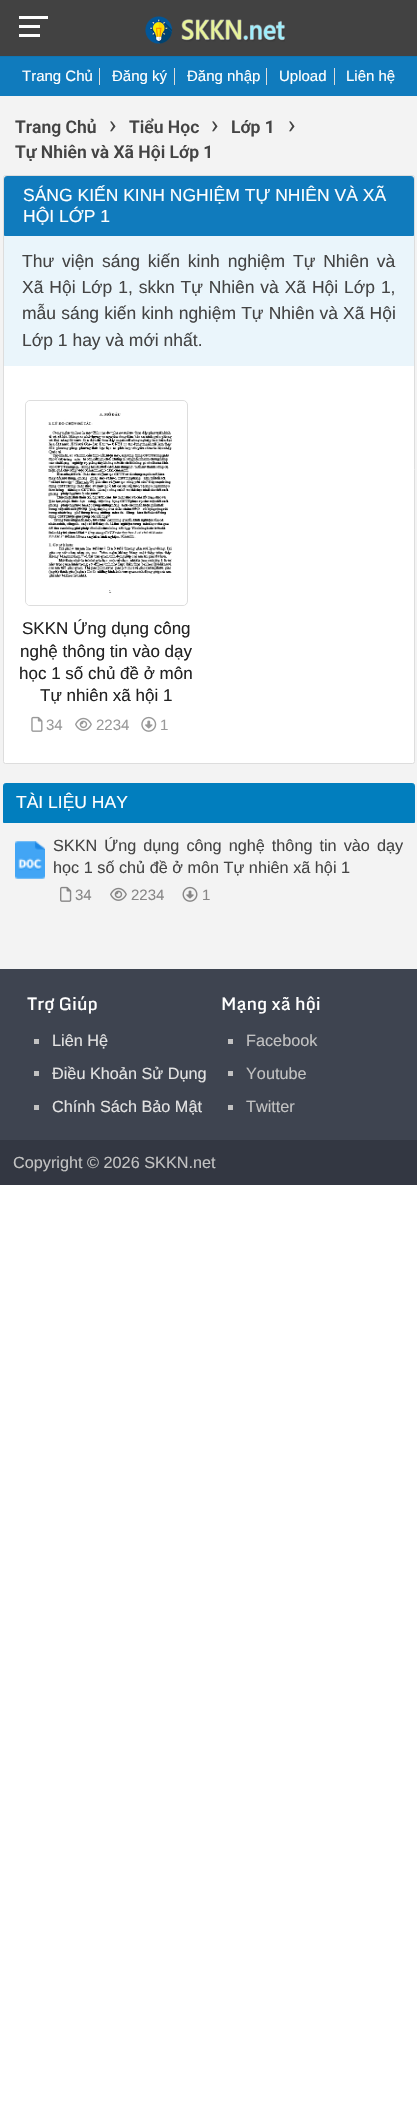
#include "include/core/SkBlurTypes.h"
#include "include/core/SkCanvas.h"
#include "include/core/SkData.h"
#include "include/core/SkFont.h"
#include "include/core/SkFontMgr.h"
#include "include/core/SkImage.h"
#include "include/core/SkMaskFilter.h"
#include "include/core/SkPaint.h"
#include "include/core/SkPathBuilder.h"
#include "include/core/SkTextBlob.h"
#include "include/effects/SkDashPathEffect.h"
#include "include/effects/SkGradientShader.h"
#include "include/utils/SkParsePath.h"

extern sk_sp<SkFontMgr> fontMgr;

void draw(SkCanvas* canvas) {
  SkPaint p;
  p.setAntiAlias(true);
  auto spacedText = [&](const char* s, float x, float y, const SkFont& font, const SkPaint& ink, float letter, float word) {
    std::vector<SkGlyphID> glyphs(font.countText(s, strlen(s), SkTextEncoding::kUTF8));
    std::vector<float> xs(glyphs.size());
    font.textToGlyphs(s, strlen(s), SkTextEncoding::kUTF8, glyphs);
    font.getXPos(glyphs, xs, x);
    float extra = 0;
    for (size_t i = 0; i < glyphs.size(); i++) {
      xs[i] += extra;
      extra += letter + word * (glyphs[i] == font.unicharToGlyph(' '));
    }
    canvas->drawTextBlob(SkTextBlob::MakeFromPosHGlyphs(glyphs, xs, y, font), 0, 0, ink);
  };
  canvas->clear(SK_ColorWHITE);
  p.setColor(SkColorSetRGB(243, 243, 243));
  canvas->drawRect(SkRect::MakeLTRB(0, 96, 417, 969), p);
  p.setColor(SkColorSetRGB(16, 123, 189));
  canvas->drawRect(SkRect::MakeLTRB(0, 56, 417, 96), p);
  p.setColor(SkColorSetARGB(77, 0, 0, 0));
  p.setMaskFilter(SkMaskFilter::MakeBlur(kNormal_SkBlurStyle, 0.5f));
  canvas->drawRect(SkRect::MakeLTRB(0, 0, 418, 56), p);
  p.setMaskFilter(nullptr);
  p.setColor(SkColorSetRGB(66, 66, 66));
  canvas->drawRect(SkRect::MakeLTRB(0, 0, 417, 56), p);
  p.setColor(SK_ColorWHITE);
  canvas->drawRect(SkRect::MakeLTRB(19, 25, 40, 28), p);
  canvas->drawRect(SkRect::MakeLTRB(19, 16, 48, 19), p);
  canvas->drawRect(SkRect::MakeLTRB(19, 34, 40, 37), p);
  canvas->drawImageRect(SkImages::DeferredFromEncodedData(SkData::MakeFromFileName("images/1.png")), SkRect::MakeLTRB(145, 16, 285, 44), SkSamplingOptions());
  p.setColor(SkColorSetRGB(221, 221, 221));
  canvas->drawRect(SkRect::MakeLTRB(99, 68, 100, 85), p);
  canvas->drawRect(SkRect::MakeLTRB(174, 68, 175, 85), p);
  canvas->drawRect(SkRect::MakeLTRB(266, 68, 267, 85), p);
  canvas->drawRect(SkRect::MakeLTRB(334, 68, 335, 85), p);
  p.setColor(SK_ColorWHITE);
  canvas->drawRoundRect(SkRect::MakeLTRB(3.5f, 175.5f, 414.5f, 763.5f), 2, 2, p);
  p.setStyle(SkPaint::kStroke_Style);
  p.setStrokeWidth(1);
  p.setColor(SkColorSetRGB(221, 221, 221));
  canvas->drawRoundRect(SkRect::MakeLTRB(3.5f, 175.5f, 414.5f, 763.5f), 2, 2, p);
  p.setStyle(SkPaint::kFill_Style);
  p.setColor(SkColorSetRGB(16, 123, 189));
  canvas->drawPath(SkPathBuilder().moveTo(6.5f, 176.5f).lineTo(411.5f, 176.5f).cubicTo(412.5f, 176.5f, 413.5f, 177.5f, 413.5f, 178.5f).lineTo(413.5f, 235.5f).lineTo(4.5f, 235.5f).lineTo(4.5f, 178.5f).cubicTo(4.5f, 177.5f, 5.5f, 176.5f, 6.5f, 176.5f).close().detach(), p);
  p.setStyle(SkPaint::kStroke_Style);
  canvas->drawPath(SkPathBuilder().moveTo(6.5f, 176.5f).lineTo(411.5f, 176.5f).cubicTo(412.5f, 176.5f, 413.5f, 177.5f, 413.5f, 178.5f).lineTo(413.5f, 235.5f).lineTo(4.5f, 235.5f).lineTo(4.5f, 178.5f).cubicTo(4.5f, 177.5f, 5.5f, 176.5f, 6.5f, 176.5f).close().detach(), p);
  p.setStyle(SkPaint::kFill_Style);
  p.setColor(SkColorSetRGB(234, 245, 251));
  canvas->drawRect(SkRect::MakeLTRB(4, 236, 414, 366), p);
  p.setStyle(SkPaint::kStroke_Style);
  p.setColor(SkColorSetRGB(221, 221, 221));
  canvas->drawRoundRect(SkRect::MakeLTRB(25.5f, 400.5f, 187.5f, 605.5f), 4.5f, 4.5f, p);
  canvas->drawImageRect(SkImages::DeferredFromEncodedData(SkData::MakeFromFileName("images/2.png")), SkRect::MakeLTRB(26, 401, 185, 605), SkSamplingOptions());
  canvas->drawImageRect(SkImages::DeferredFromEncodedData(SkData::MakeFromFileName("images/3.png")), SkRect::MakeLTRB(31, 716, 43, 732), SkSamplingOptions());
  canvas->drawImageRect(SkImages::DeferredFromEncodedData(SkData::MakeFromFileName("images/4.png")), SkRect::MakeLTRB(75, 717, 92, 731), SkSamplingOptions());
  canvas->drawImageRect(SkImages::DeferredFromEncodedData(SkData::MakeFromFileName("images/5.png")), SkRect::MakeLTRB(141, 716, 157, 732), SkSamplingOptions());
  p.setStyle(SkPaint::kFill_Style);
  p.setColor(SkColorSetRGB(1, 126, 190));
  canvas->drawPath(SkPathBuilder().moveTo(5.5f, 783.5f).lineTo(412.5f, 783.5f).cubicTo(413.5f, 783.5f, 414.5f, 784.5f, 414.5f, 785.5f).lineTo(414.5f, 822.5f).lineTo(3.5f, 822.5f).lineTo(3.5f, 785.5f).cubicTo(3.5f, 784.5f, 4.5f, 783.5f, 5.5f, 783.5f).close().detach(), p);
  p.setStyle(SkPaint::kStroke_Style);
  canvas->drawPath(SkPathBuilder().moveTo(5.5f, 783.5f).lineTo(412.5f, 783.5f).cubicTo(413.5f, 783.5f, 414.5f, 784.5f, 414.5f, 785.5f).lineTo(414.5f, 822.5f).lineTo(3.5f, 822.5f).lineTo(3.5f, 785.5f).cubicTo(3.5f, 784.5f, 4.5f, 783.5f, 5.5f, 783.5f).close().detach(), p);
  canvas->drawImageRect(SkImages::DeferredFromEncodedData(SkData::MakeFromFileName("images/6.png")), SkRect::MakeLTRB(15, 841, 45, 879), SkSamplingOptions());
  canvas->drawImageRect(SkImages::DeferredFromEncodedData(SkData::MakeFromFileName("images/7.png")), SkRect::MakeLTRB(60, 886, 72, 902), SkSamplingOptions());
  canvas->drawImageRect(SkImages::DeferredFromEncodedData(SkData::MakeFromFileName("images/8.png")), SkRect::MakeLTRB(110, 887, 127, 901), SkSamplingOptions());
  canvas->drawImageRect(SkImages::DeferredFromEncodedData(SkData::MakeFromFileName("images/9.png")), SkRect::MakeLTRB(182, 886, 198, 902), SkSamplingOptions());
  p.setStyle(SkPaint::kFill_Style);
  p.setColor(SkColorSetRGB(62, 68, 80));
  canvas->drawRect(SkRect::MakeLTRB(0, 969, 417, 1140), p);
  p.setColor(SkColorSetRGB(194, 194, 194));
  canvas->drawRect(SkRect::MakeLTRB(34, 1039, 39, 1044), p);
  canvas->drawRect(SkRect::MakeLTRB(34, 1071, 39, 1076), p);
  canvas->drawRect(SkRect::MakeLTRB(34, 1105, 39, 1110), p);
  canvas->drawRect(SkRect::MakeLTRB(228, 1039, 233, 1044), p);
  canvas->drawRect(SkRect::MakeLTRB(228, 1071, 233, 1076), p);
  canvas->drawRect(SkRect::MakeLTRB(228, 1105, 233, 1110), p);
  p.setColor(SkColorSetRGB(51, 55, 66));
  canvas->drawRect(SkRect::MakeLTRB(0, 1140, 417, 1185), p);
  SkFont font1(fontMgr->matchFamilyStyle("Liberation Sans", SkFontStyle::Normal()), 15);
  font1.setSubpixel(true);
  p.setColor(SK_ColorWHITE);
  canvas->drawString("Trang Chủ", 22, 81, font1, p);
  canvas->drawString("Đăng ký", 112, 81, font1, p);
  canvas->drawString("Đăng nhập", 187, 81, font1, p);
  canvas->drawString("Upload", 279, 81, font1, p);
  canvas->drawString("Liên hệ", 346, 81, font1, p);
  SkFont font2(fontMgr->matchFamilyStyle("Roboto", SkFontStyle(600, SkFontStyle::kNormal_Width, SkFontStyle::kUpright_Slant)), 17.5f);
  font2.setSubpixel(true);
  p.setColor(SkColorSetRGB(68, 68, 68));
  canvas->drawString("Trang Chủ", 15, 133, font2, p);
  SkFont font3(fontMgr->matchFamilyStyle("Roboto", SkFontStyle::Normal()), 25);
  font3.setSubpixel(true);
  canvas->drawString("›", 109, 133, font3, p);
  canvas->drawString("Tiểu Học", 129, 133, font2, p);
  canvas->drawString("›", 211, 133, font3, p);
  canvas->drawString("Lớp 1", 231, 133, font2, p);
  canvas->drawString("›", 288, 133, font3, p);
  canvas->drawString("Tự Nhiên và Xã Hội Lớp 1", 15, 158, font2, p);
  SkFont font4(fontMgr->matchFamilyStyle("Liberation Sans", SkFontStyle::Normal()), 17.5f);
  font4.setSubpixel(true);
  p.setColor(SK_ColorWHITE);
  canvas->drawString("SÁNG KIẾN KINH NGHIỆM TỰ NHIÊN VÀ XÃ", 23, 201, font4, p);
  canvas->drawString("HỘI LỚP 1", 23, 222, font4, p);
  p.setColor(SkColorSetRGB(68, 68, 68));
  spacedText("Thư viện sáng kiến kinh nghiệm Tự Nhiên và", 22, 267, font4, p, 0, 3);
  spacedText("Xã Hội Lớp 1, skkn Tự Nhiên và Xã Hội Lớp 1,", 22, 293, font4, p, 0, 1);
  spacedText("mẫu sáng kiến kinh nghiệm Tự Nhiên và Xã Hội", 22, 319, font4, p, 0, 0.25f);
  canvas->drawString("Lớp 1 hay và mới nhất.", 22, 346, font4, p);
  SkFont font5(fontMgr->matchFamilyStyle("Liberation Sans", SkFontStyle::Normal()), 17);
  font5.setSubpixel(true);
  p.setColor(SkColorSetRGB(34, 34, 34));
  canvas->drawString("SKKN Ứng dụng công", 22, 634, font5, p);
  canvas->drawString("nghệ thông tin vào dạy", 20, 657, font5, p);
  canvas->drawString("học 1 số chủ đề ở môn", 19, 679, font5, p);
  canvas->drawString("Tự nhiên xã hội 1", 40, 701, font5, p);
  p.setColor(SkColorSetRGB(153, 153, 153));
  canvas->drawString("34", 46, 730, font1, p);
  canvas->drawString("2234", 96, 730, font1, p);
  canvas->drawString("1", 160, 730, font1, p);
  p.setColor(SK_ColorWHITE);
  canvas->drawString("TÀI LIỆU HAY", 16, 808, font4, p);
  SkFont font6(fontMgr->matchFamilyStyle("Liberation Sans", SkFontStyle::Normal()), 16.25f);
  font6.setSubpixel(true);
  p.setColor(SkColorSetRGB(68, 68, 68));
  spacedText("SKKN Ứng dụng công nghệ thông tin vào dạy", 53, 851, font6, p, 0, 2.5f);
  canvas->drawString("học 1 số chủ đề ở môn Tự nhiên xã hội 1", 53, 873, font6, p);
  p.setColor(SkColorSetRGB(135, 134, 134));
  canvas->drawString("34", 75, 900, font1, p);
  canvas->drawString("2234", 131, 900, font1, p);
  canvas->drawString("1", 202, 900, font1, p);
  SkFont font7(fontMgr->matchFamilyStyle("Monda", SkFontStyle(500, SkFontStyle::kNormal_Width, SkFontStyle::kUpright_Slant)), 17.5f);
  font7.setSubpixel(true);
  p.setColor(SK_ColorWHITE);
  canvas->drawString("Trợ Giúp", 27, 1010, font7, p);
  p.setColor(SkColorSetRGB(226, 226, 226));
  canvas->drawString("Liên Hệ", 52, 1046, font6, p);
  canvas->drawString("Điều Khoản Sử Dụng", 52, 1079, font6, p);
  canvas->drawString("Chính Sách Bảo Mật", 52, 1112, font6, p);
  p.setColor(SK_ColorWHITE);
  canvas->drawString("Mạng xã hội", 221, 1010, font7, p);
  p.setColor(SkColorSetRGB(194, 194, 194));
  canvas->drawString("Facebook", 246, 1046, font6, p);
  canvas->drawString("Youtube", 246, 1079, font6, p);
  canvas->drawString("Twitter", 246, 1112, font6, p);
  canvas->drawString("Copyright © 2026 SKKN.net", 13, 1168, font6, p);
}
